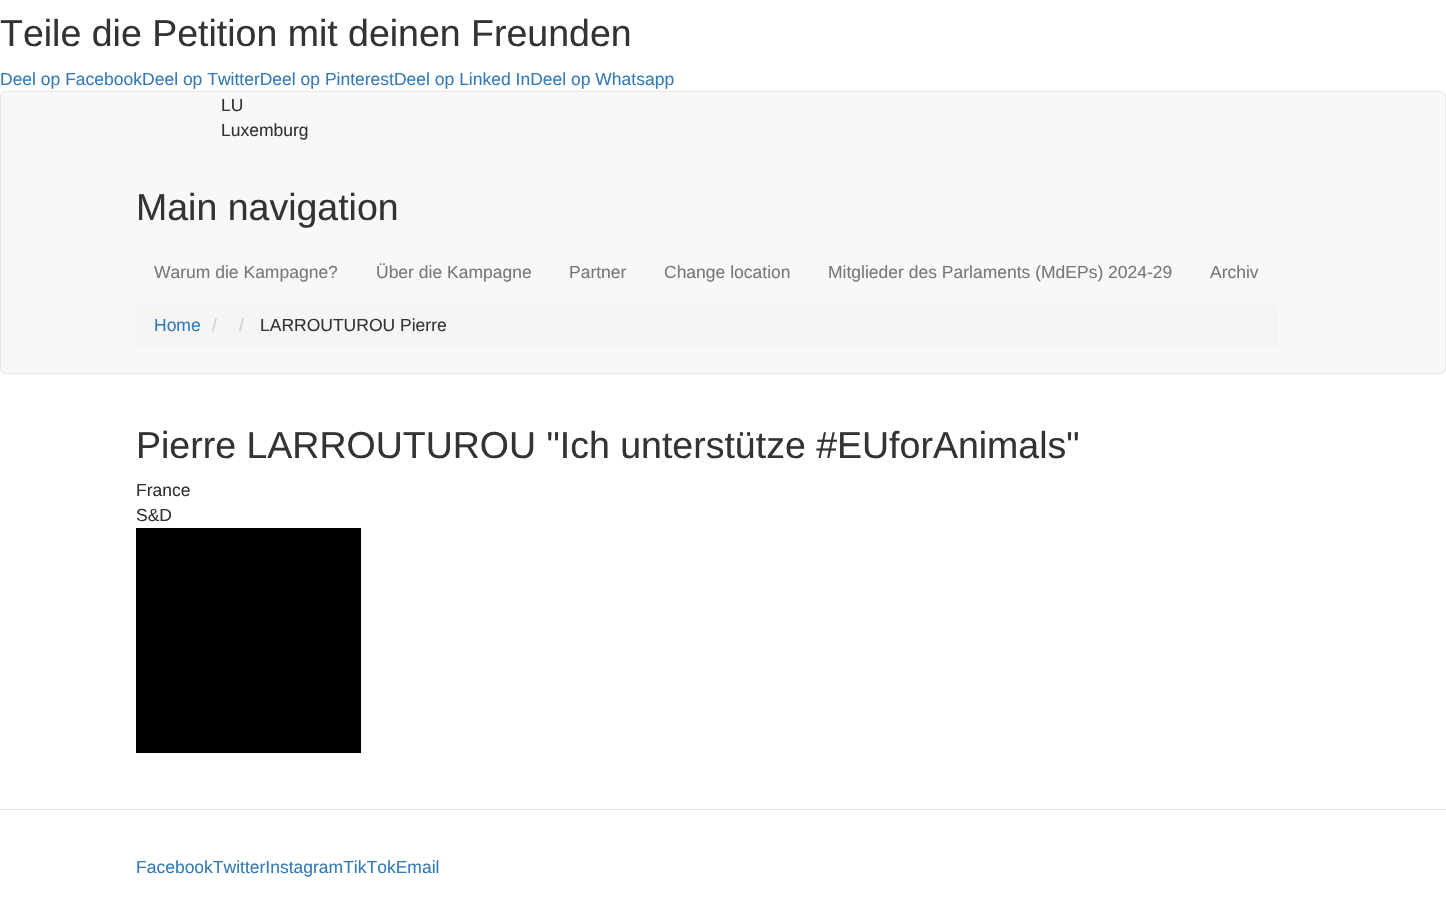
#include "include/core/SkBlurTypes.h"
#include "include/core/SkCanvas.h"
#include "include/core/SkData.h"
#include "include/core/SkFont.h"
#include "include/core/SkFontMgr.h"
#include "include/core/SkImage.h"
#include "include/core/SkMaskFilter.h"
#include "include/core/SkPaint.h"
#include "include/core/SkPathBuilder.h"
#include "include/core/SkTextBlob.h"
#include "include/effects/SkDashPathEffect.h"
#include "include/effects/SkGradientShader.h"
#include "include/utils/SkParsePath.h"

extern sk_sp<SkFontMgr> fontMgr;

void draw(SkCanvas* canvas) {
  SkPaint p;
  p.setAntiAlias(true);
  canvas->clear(SK_ColorWHITE);
  p.setColor(SkColorSetRGB(248, 248, 248));
  canvas->drawRoundRect(SkRect::MakeLTRB(0.5f, 91.5f, 1445.5f, 373.5f), 4.5f, 4.5f, p);
  p.setStyle(SkPaint::kStroke_Style);
  p.setStrokeWidth(1);
  p.setColor(SkColorSetRGB(231, 231, 231));
  canvas->drawRoundRect(SkRect::MakeLTRB(0.5f, 91.5f, 1445.5f, 373.5f), 4.5f, 4.5f, p);
  p.setStyle(SkPaint::kFill_Style);
  p.setColor(SkColorSetRGB(245, 245, 245));
  canvas->drawRoundRect(SkRect::MakeLTRB(136, 303, 1278, 348), 5, 5, p);
  p.setColor(SK_ColorBLACK);
  canvas->drawRect(SkRect::MakeLTRB(136, 528, 361, 753), p);
  p.setColor(SkColorSetRGB(229, 229, 229));
  canvas->drawRect(SkRect::MakeLTRB(0, 809, 1446, 810), p);
  SkFont font1(fontMgr->matchFamilyStyle("Liberation Sans", SkFontStyle::Normal()), 37.5f);
  font1.setSubpixel(true);
  p.setColor(SkColorSetRGB(51, 51, 51));
  canvas->drawString("Teile die Petition mit deinen Freunden", 0, 46, font1, p);
  SkFont font2(fontMgr->matchFamilyStyle("Liberation Sans", SkFontStyle::Normal()), 17.5f);
  font2.setSubpixel(true);
  p.setColor(SkColorSetRGB(51, 122, 183));
  canvas->drawString("Deel op FacebookDeel op TwitterDeel op PinterestDeel op Linked InDeel op Whatsapp", 0, 85, font2, p);
  p.setColor(SkColorSetRGB(51, 51, 51));
  canvas->drawString("LU", 221, 111, font2, p);
  canvas->drawString("Luxemburg", 221, 136, font2, p);
  canvas->drawString("Main navigation", 136, 220, font1, p);
  p.setColor(SkColorSetRGB(119, 119, 119));
  canvas->drawString("Warum die Kampagne?", 154, 278, font2, p);
  canvas->drawString("Über die Kampagne", 376, 278, font2, p);
  canvas->drawString("Partner", 569, 278, font2, p);
  canvas->drawString("Change location", 664, 278, font2, p);
  canvas->drawString("Mitglieder des Parlaments (MdEPs) 2024-29", 828, 278, font2, p);
  canvas->drawString("Archiv", 1210, 278, font2, p);
  p.setColor(SkColorSetRGB(51, 122, 183));
  canvas->drawString("Home", 154, 331, font2, p);
  p.setColor(SkColorSetRGB(204, 204, 204));
  canvas->drawString("/", 212, 331, font2, p);
  canvas->drawString("/", 239, 331, font2, p);
  p.setColor(SkColorSetRGB(51, 51, 51));
  canvas->drawString("LARROUTUROU Pierre", 260, 331, font2, p);
  canvas->drawString("Pierre LARROUTUROU \"Ich unterstütze #EUforAnimals\"", 136, 458, font1, p);
  canvas->drawString("France", 136, 496, font2, p);
  canvas->drawString("S&D", 136, 521, font2, p);
  p.setColor(SkColorSetRGB(51, 122, 183));
  canvas->drawString("FacebookTwitterInstagramTikTokEmail", 136, 873, font2, p);
}
